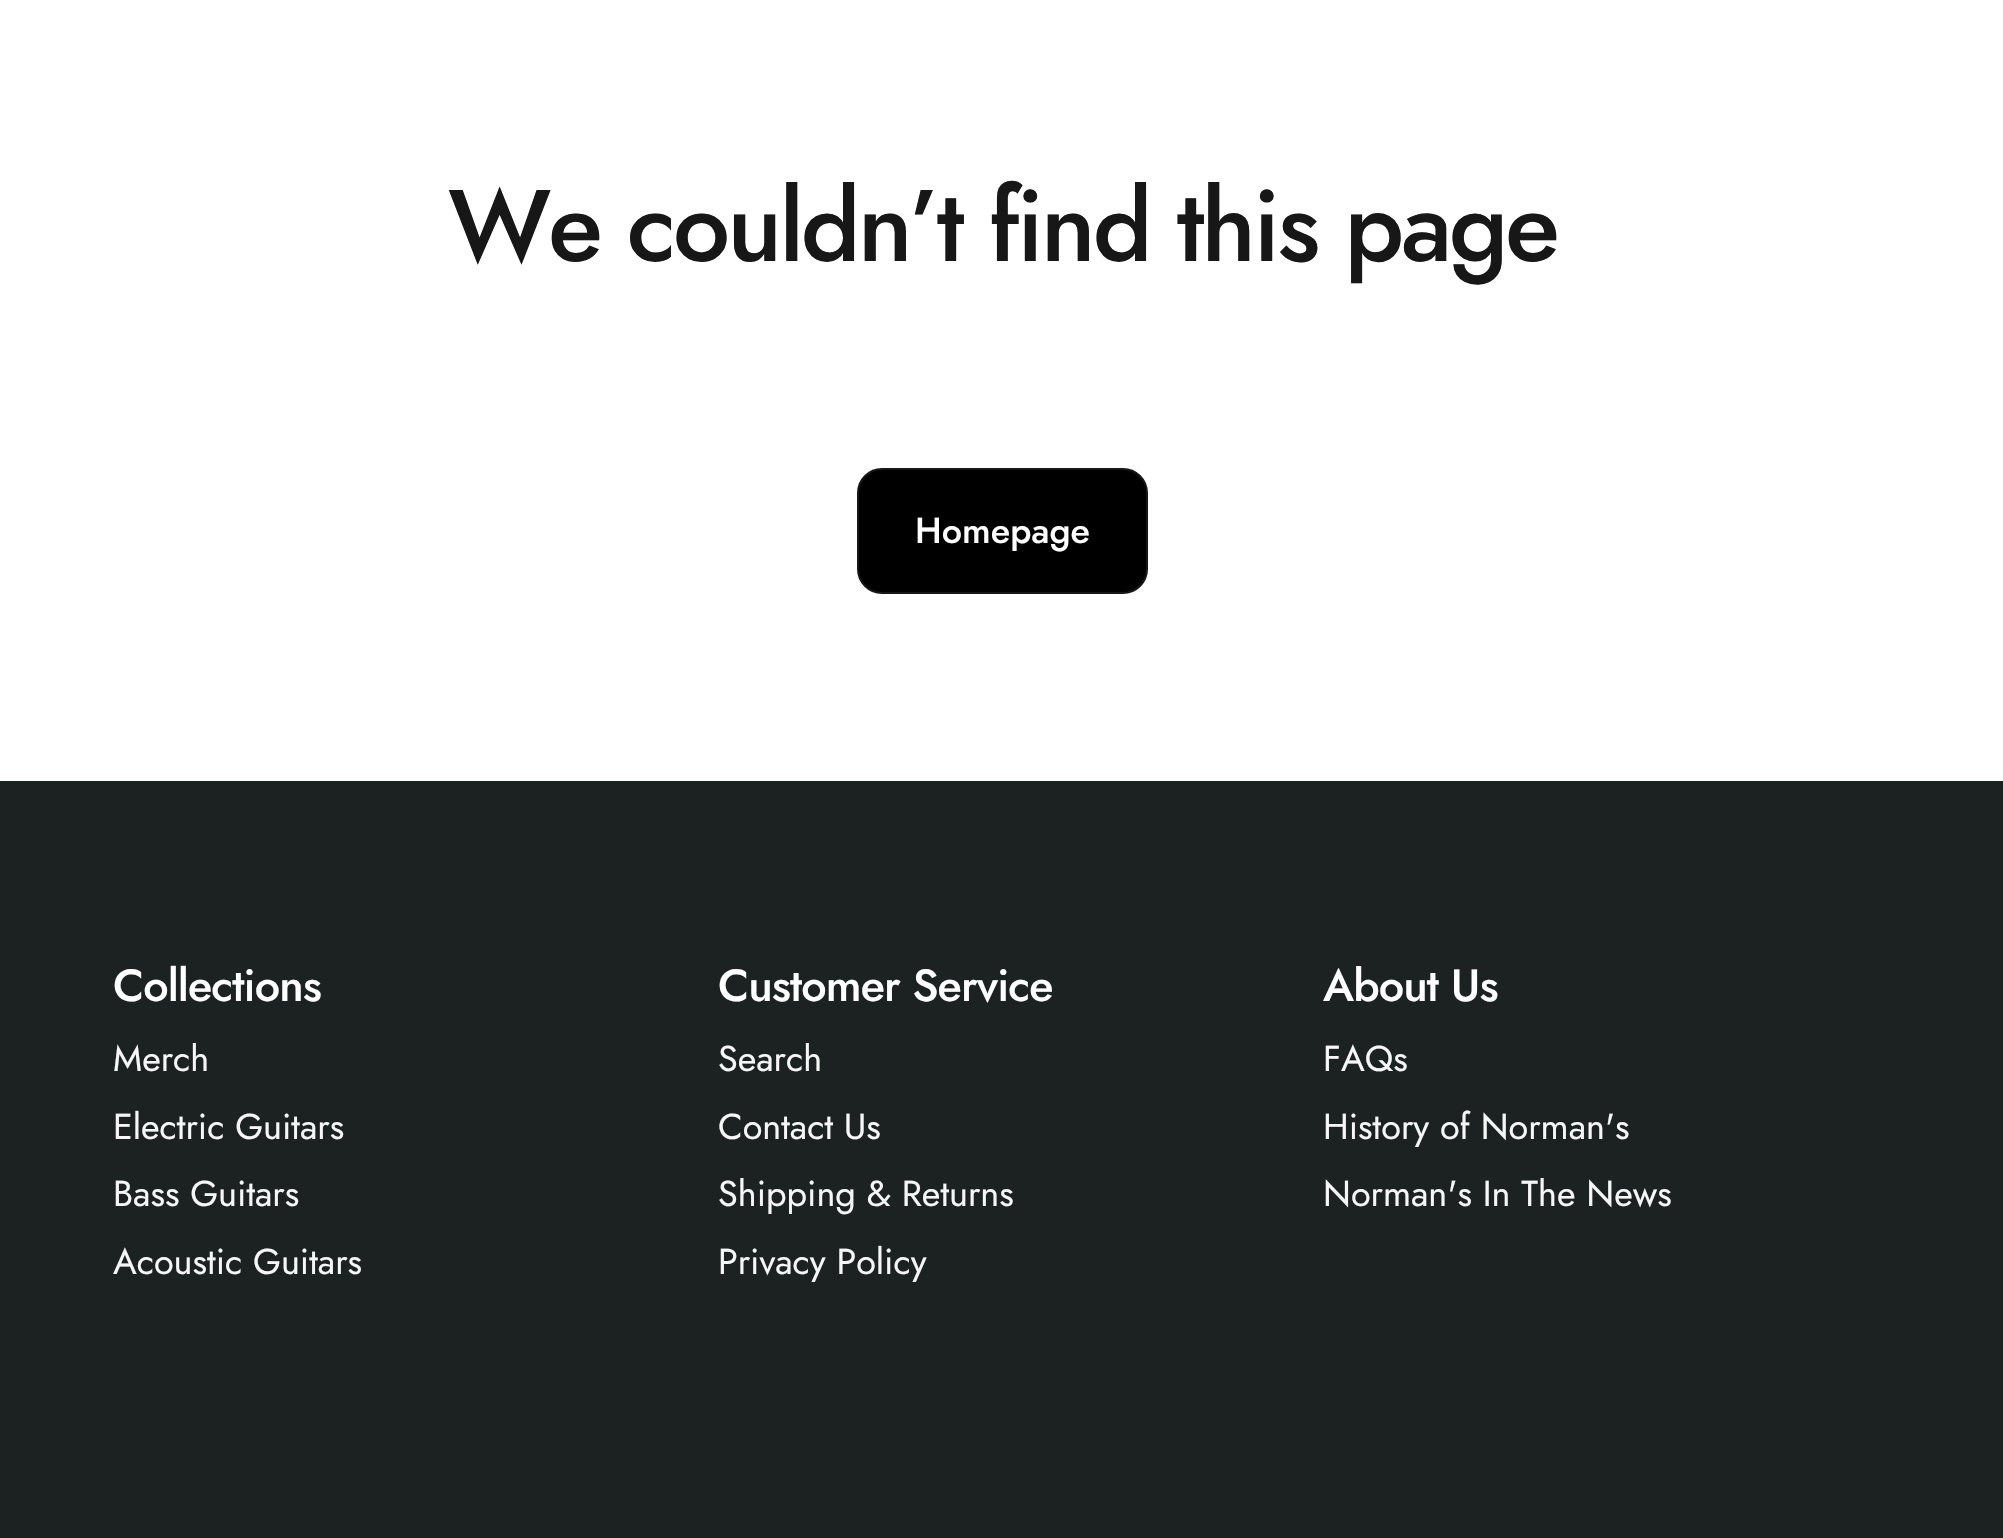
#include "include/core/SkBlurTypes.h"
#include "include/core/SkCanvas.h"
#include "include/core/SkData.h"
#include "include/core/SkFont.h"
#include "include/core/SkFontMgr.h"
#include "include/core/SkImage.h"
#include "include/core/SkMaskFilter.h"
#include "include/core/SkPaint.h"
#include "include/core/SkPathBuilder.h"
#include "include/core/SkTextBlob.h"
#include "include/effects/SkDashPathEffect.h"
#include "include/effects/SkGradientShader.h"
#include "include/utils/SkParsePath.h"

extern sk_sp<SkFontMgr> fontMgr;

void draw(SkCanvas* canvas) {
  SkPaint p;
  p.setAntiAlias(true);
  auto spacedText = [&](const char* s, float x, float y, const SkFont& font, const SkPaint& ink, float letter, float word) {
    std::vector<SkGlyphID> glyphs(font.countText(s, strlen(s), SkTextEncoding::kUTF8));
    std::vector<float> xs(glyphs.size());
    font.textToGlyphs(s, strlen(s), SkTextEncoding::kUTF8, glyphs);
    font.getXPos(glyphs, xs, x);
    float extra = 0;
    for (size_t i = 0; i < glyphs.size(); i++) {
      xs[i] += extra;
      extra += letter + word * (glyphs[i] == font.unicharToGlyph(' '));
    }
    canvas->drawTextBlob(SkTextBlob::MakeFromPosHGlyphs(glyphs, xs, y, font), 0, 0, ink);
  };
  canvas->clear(SK_ColorWHITE);
  p.setColor(SK_ColorBLACK);
  canvas->drawRoundRect(SkRect::MakeLTRB(858, 469, 1147, 593), 24, 24, p);
  p.setStyle(SkPaint::kStroke_Style);
  p.setStrokeWidth(2);
  p.setColor(SkColorSetRGB(23, 23, 23));
  canvas->drawRoundRect(SkRect::MakeLTRB(858, 469, 1147, 593), 24, 24, p);
  p.setStyle(SkPaint::kFill_Style);
  p.setColor(SkColorSetRGB(28, 34, 33));
  canvas->drawRect(SkRect::MakeLTRB(0, 781, 2003, 1538), p);
  SkFont font1(fontMgr->matchFamilyStyle("Jost", SkFontStyle(500, SkFontStyle::kNormal_Width, SkFontStyle::kUpright_Slant)), 101.25f);
  font1.setSubpixel(true);
  p.setColor(SkColorSetRGB(23, 23, 23));
  spacedText("We couldn’t find this page", 448, 261, font1, p, -3.05f, 0);
  SkFont font2(fontMgr->matchFamilyStyle("Jost", SkFontStyle(500, SkFontStyle::kNormal_Width, SkFontStyle::kUpright_Slant)), 36);
  font2.setSubpixel(true);
  p.setColor(SK_ColorWHITE);
  canvas->drawString("Homepage", 915, 543, font2, p);
  SkFont font3(fontMgr->matchFamilyStyle("Jost", SkFontStyle(500, SkFontStyle::kNormal_Width, SkFontStyle::kUpright_Slant)), 45);
  font3.setSubpixel(true);
  spacedText("Collections", 113, 1001, font3, p, -0.9f, 0);
  SkFont font4(fontMgr->matchFamilyStyle("Jost", SkFontStyle::Normal()), 36);
  font4.setSubpixel(true);
  p.setColor(SkColorSetRGB(246, 246, 246));
  canvas->drawString("Merch", 113, 1071, font4, p);
  canvas->drawString("Electric Guitars", 113, 1139, font4, p);
  canvas->drawString("Bass Guitars", 113, 1206, font4, p);
  canvas->drawString("Acoustic Guitars", 113, 1274, font4, p);
  p.setColor(SK_ColorWHITE);
  spacedText("Customer Service", 718, 1001, font3, p, -0.9f, 0);
  p.setColor(SkColorSetRGB(246, 246, 246));
  canvas->drawString("Search", 718, 1071, font4, p);
  canvas->drawString("Contact Us", 718, 1139, font4, p);
  canvas->drawString("Shipping & Returns", 718, 1206, font4, p);
  canvas->drawString("Privacy Policy", 718, 1274, font4, p);
  p.setColor(SK_ColorWHITE);
  spacedText("About Us", 1323, 1001, font3, p, -0.9f, 0);
  p.setColor(SkColorSetRGB(246, 246, 246));
  canvas->drawString("FAQs", 1323, 1071, font4, p);
  canvas->drawString("History of Norman's", 1323, 1139, font4, p);
  canvas->drawString("Norman's In The News", 1323, 1206, font4, p);
}
